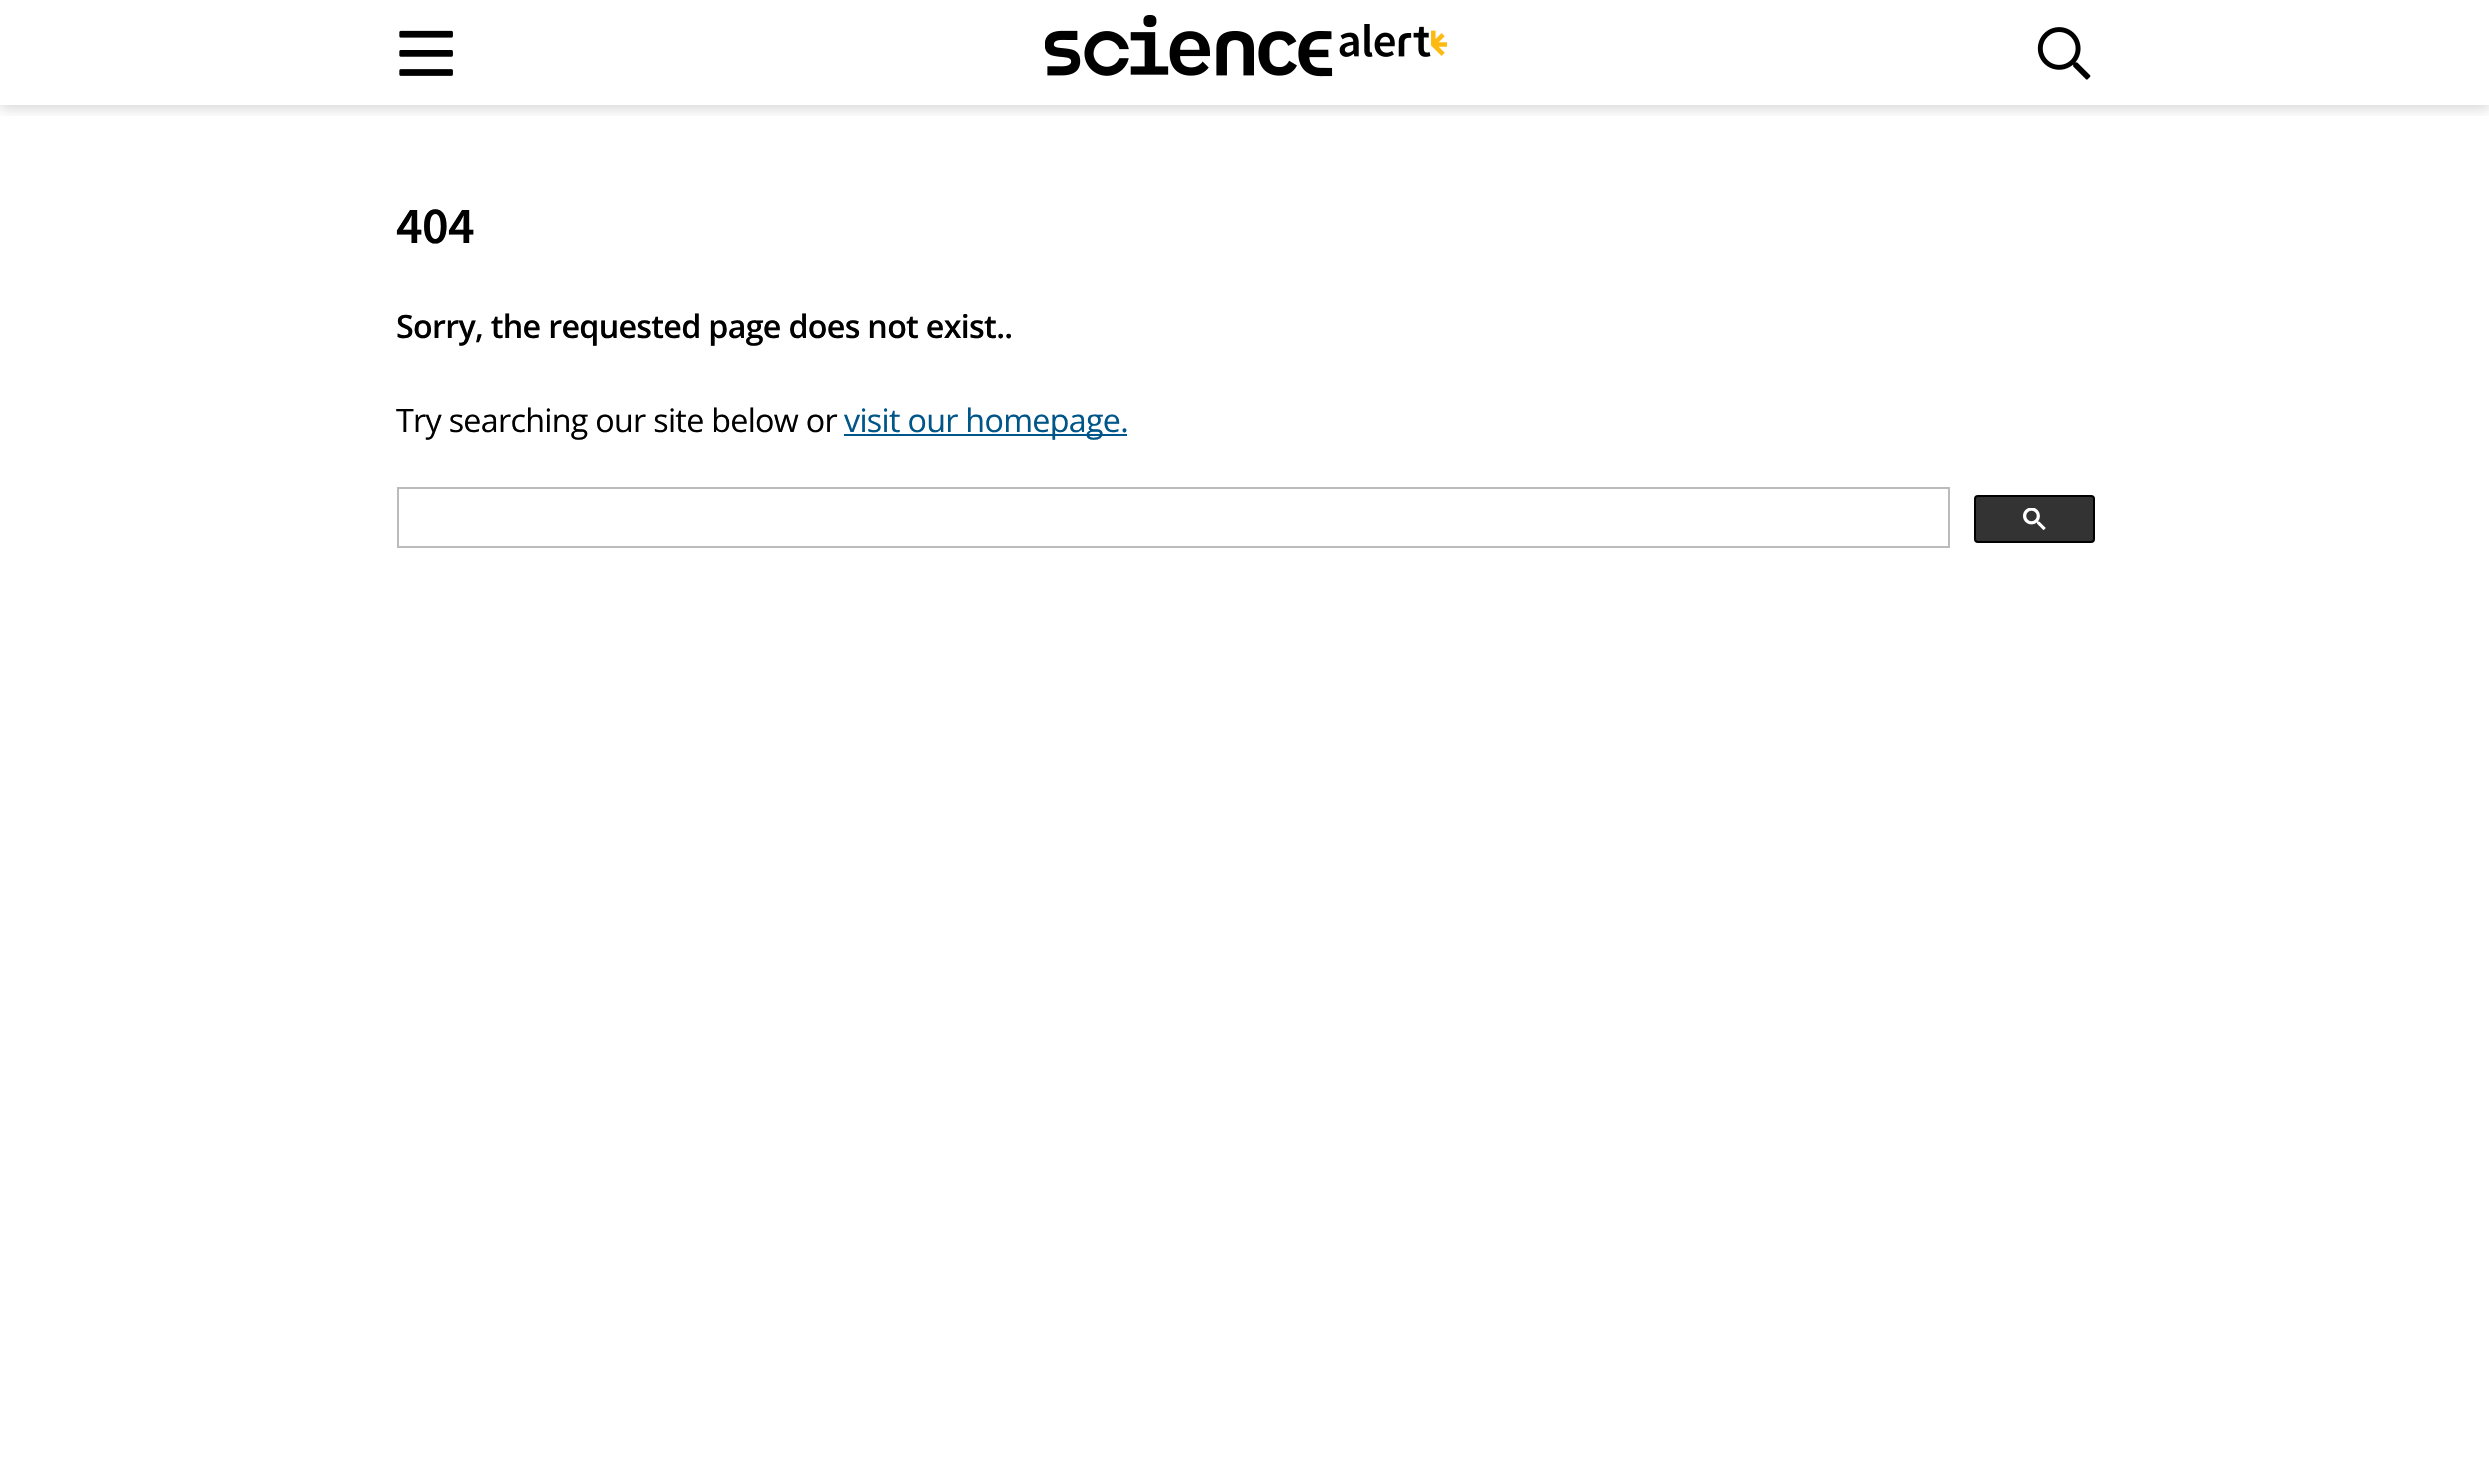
#include "include/core/SkBlurTypes.h"
#include "include/core/SkCanvas.h"
#include "include/core/SkData.h"
#include "include/core/SkFont.h"
#include "include/core/SkFontMgr.h"
#include "include/core/SkImage.h"
#include "include/core/SkMaskFilter.h"
#include "include/core/SkPaint.h"
#include "include/core/SkPathBuilder.h"
#include "include/core/SkTextBlob.h"
#include "include/effects/SkDashPathEffect.h"
#include "include/effects/SkGradientShader.h"
#include "include/utils/SkParsePath.h"

extern sk_sp<SkFontMgr> fontMgr;

void draw(SkCanvas* canvas) {
  SkPaint p;
  p.setAntiAlias(true);
  auto spacedText = [&](const char* s, float x, float y, const SkFont& font, const SkPaint& ink, float letter, float word) {
    std::vector<SkGlyphID> glyphs(font.countText(s, strlen(s), SkTextEncoding::kUTF8));
    std::vector<float> xs(glyphs.size());
    font.textToGlyphs(s, strlen(s), SkTextEncoding::kUTF8, glyphs);
    font.getXPos(glyphs, xs, x);
    float extra = 0;
    for (size_t i = 0; i < glyphs.size(); i++) {
      xs[i] += extra;
      extra += letter + word * (glyphs[i] == font.unicharToGlyph(' '));
    }
    canvas->drawTextBlob(SkTextBlob::MakeFromPosHGlyphs(glyphs, xs, y, font), 0, 0, ink);
  };
  canvas->clear(SK_ColorWHITE);
  canvas->save();
  canvas->clipRect(SkRect::MakeLTRB(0, 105, 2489, 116));
  p.setColor(SkColorSetARGB(38, 0, 0, 0));
  p.setMaskFilter(SkMaskFilter::MakeBlur(kNormal_SkBlurStyle, 6));
  canvas->drawRect(SkRect::MakeLTRB(0, 4, 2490, 109), p);
  p.setMaskFilter(nullptr);
  canvas->restore();
  canvas->drawImageRect(SkImages::DeferredFromEncodedData(SkData::MakeFromFileName("images/1.png")), SkRect::MakeLTRB(1045, 14, 1447, 77), SkSamplingOptions());
  canvas->drawImageRect(SkImages::DeferredFromEncodedData(SkData::MakeFromFileName("images/2.png")), SkRect::MakeLTRB(399, 30, 453, 76), SkSamplingOptions());
  canvas->drawImageRect(SkImages::DeferredFromEncodedData(SkData::MakeFromFileName("images/3.png")), SkRect::MakeLTRB(2037, 27, 2091, 80), SkSamplingOptions());
  p.setColor(SkColorSetRGB(0, 86, 137));
  canvas->drawRect(SkRect::MakeLTRB(844, 434, 1127, 436), p);
  p.setStyle(SkPaint::kStroke_Style);
  p.setStrokeWidth(2);
  p.setColor(SkColorSetRGB(187, 187, 187));
  canvas->drawRect(SkRect::MakeLTRB(398, 488, 1949, 547), p);
  p.setStyle(SkPaint::kFill_Style);
  p.setColor(SkColorSetRGB(51, 51, 51));
  canvas->drawRoundRect(SkRect::MakeLTRB(1975, 496, 2094, 542), 3, 3, p);
  p.setStyle(SkPaint::kStroke_Style);
  p.setColor(SK_ColorBLACK);
  canvas->drawRoundRect(SkRect::MakeLTRB(1975, 496, 2094, 542), 3, 3, p);
  canvas->drawImageRect(SkImages::DeferredFromEncodedData(SkData::MakeFromFileName("images/4.png")), SkRect::MakeLTRB(2023, 508, 2046, 530), SkSamplingOptions());
  SkFont font1(fontMgr->matchFamilyStyle("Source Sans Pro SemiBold", SkFontStyle(600, SkFontStyle::kNormal_Width, SkFontStyle::kUpright_Slant)), 52);
  font1.setSubpixel(true);
  p.setStyle(SkPaint::kFill_Style);
  spacedText("404", 396, 243, font1, p, -0.7f, 0);
  SkFont font2(fontMgr->matchFamilyStyle("Open Sans", SkFontStyle(600, SkFontStyle::kNormal_Width, SkFontStyle::kUpright_Slant)), 32.25f);
  font2.setSubpixel(true);
  spacedText("Sorry, the requested page does not exist..", 396, 338, font2, p, -0.7f, 0);
  SkFont font3(fontMgr->matchFamilyStyle("Open Sans", SkFontStyle::Normal()), 32.25f);
  font3.setSubpixel(true);
  spacedText("Try searching our site below or", 396, 432, font3, p, -0.7f, 0);
  p.setColor(SkColorSetRGB(0, 86, 137));
  spacedText("visit our homepage.", 844, 432, font3, p, -0.7f, 0);
}
